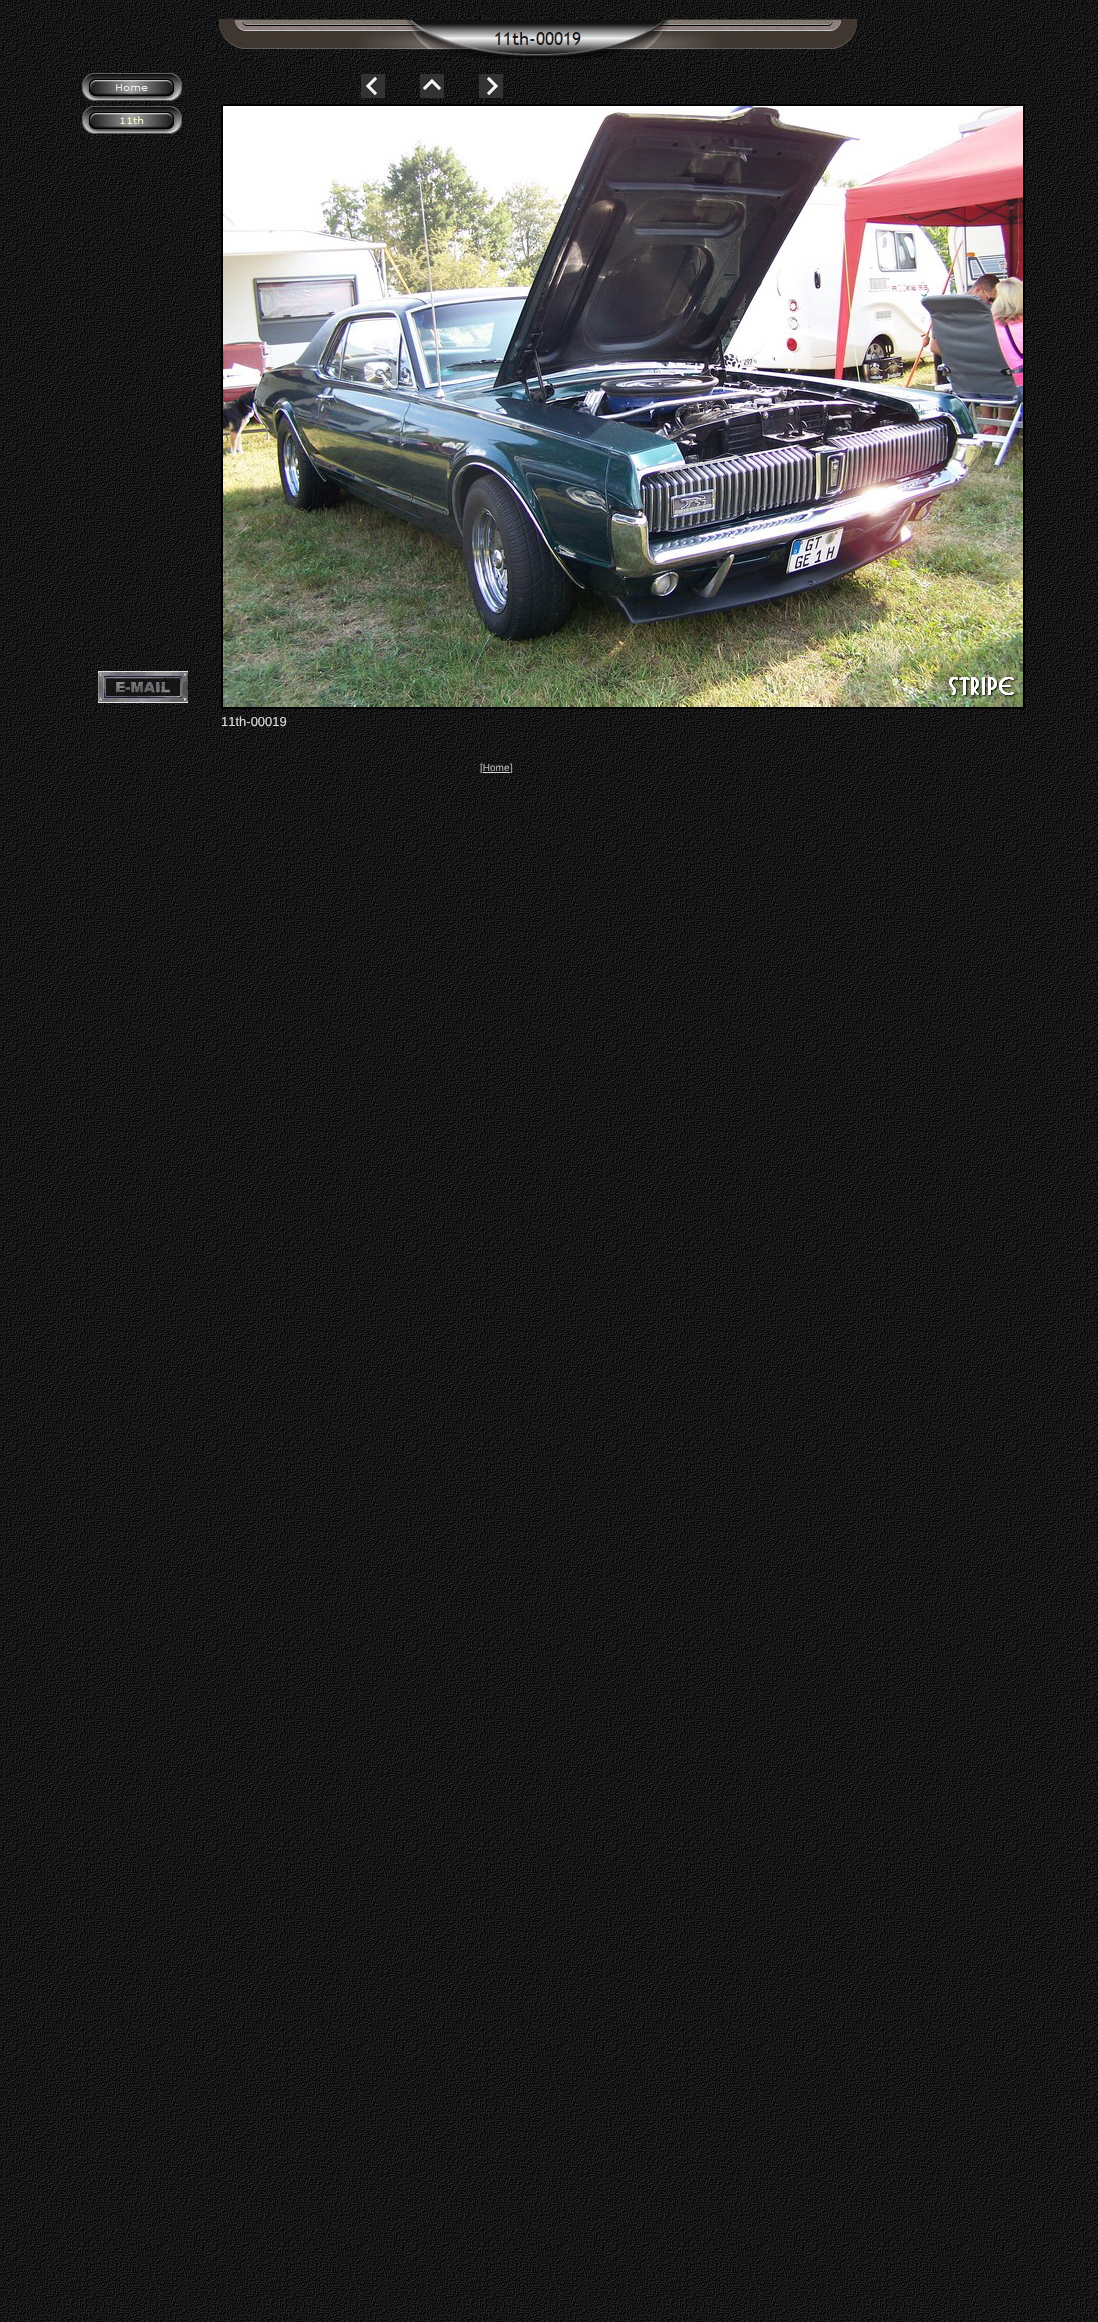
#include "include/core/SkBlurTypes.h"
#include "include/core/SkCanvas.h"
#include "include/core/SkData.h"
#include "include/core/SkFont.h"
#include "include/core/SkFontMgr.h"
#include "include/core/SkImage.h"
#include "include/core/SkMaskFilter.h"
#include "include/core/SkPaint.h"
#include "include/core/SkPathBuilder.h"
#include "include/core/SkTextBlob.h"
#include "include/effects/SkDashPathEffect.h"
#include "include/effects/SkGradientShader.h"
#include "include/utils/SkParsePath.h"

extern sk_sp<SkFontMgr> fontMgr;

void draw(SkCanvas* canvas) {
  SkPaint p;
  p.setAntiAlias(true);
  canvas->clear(SK_ColorWHITE);
  canvas->drawImageRect(SkImages::DeferredFromEncodedData(SkData::MakeFromFileName("images/1.png")), SkRect::MakeLTRB(0, 0, 1098, 2322), SkSamplingOptions());
  canvas->drawImageRect(SkImages::DeferredFromEncodedData(SkData::MakeFromFileName("images/2.png")), SkRect::MakeLTRB(82, 73, 182, 106), SkSamplingOptions());
  canvas->drawImageRect(SkImages::DeferredFromEncodedData(SkData::MakeFromFileName("images/3.png")), SkRect::MakeLTRB(82, 106, 182, 139), SkSamplingOptions());
  canvas->drawImageRect(SkImages::DeferredFromEncodedData(SkData::MakeFromFileName("images/4.png")), SkRect::MakeLTRB(98, 671, 188, 703), SkSamplingOptions());
  canvas->drawImageRect(SkImages::DeferredFromEncodedData(SkData::MakeFromFileName("images/5.png")), SkRect::MakeLTRB(217, 18, 858, 59), SkSamplingOptions());
  canvas->drawImageRect(SkImages::DeferredFromEncodedData(SkData::MakeFromFileName("images/6.png")), SkRect::MakeLTRB(361, 74, 385, 98), SkSamplingOptions());
  canvas->drawImageRect(SkImages::DeferredFromEncodedData(SkData::MakeFromFileName("images/7.png")), SkRect::MakeLTRB(420, 74, 444, 98), SkSamplingOptions());
  canvas->drawImageRect(SkImages::DeferredFromEncodedData(SkData::MakeFromFileName("images/8.png")), SkRect::MakeLTRB(479, 74, 503, 98), SkSamplingOptions());
  p.setStyle(SkPaint::kStroke_Style);
  p.setStrokeWidth(1);
  p.setColor(SK_ColorBLACK);
  canvas->drawRect(SkRect::MakeLTRB(221.5f, 104.5f, 1024.5f, 708.5f), p);
  canvas->drawRect(SkRect::MakeLTRB(222.5f, 105.5f, 1023.5f, 707.5f), p);
  canvas->drawImageRect(SkImages::DeferredFromEncodedData(SkData::MakeFromFileName("images/9.png")), SkRect::MakeLTRB(223, 106, 1023, 707), SkSamplingOptions());
  SkFont font1(fontMgr->matchFamilyStyle("Liberation Sans", SkFontStyle::Normal()), 13);
  font1.setSubpixel(true);
  p.setStyle(SkPaint::kFill_Style);
  p.setColor(SkColorSetRGB(220, 220, 220));
  canvas->drawString("11th-00019", 221, 726, font1, p);
  SkFont font2(fontMgr->matchFamilyStyle("Liberation Sans", SkFontStyle::Normal()), 10);
  font2.setSubpixel(true);
  p.setColor(SkColorSetRGB(180, 180, 180));
  canvas->drawString("[Home", 480, 771, font2, p);
  p.setColor(SkColorSetRGB(220, 220, 220));
  canvas->drawRect(SkRect::MakeLTRB(483, 772, 510, 773), p);
  p.setColor(SkColorSetRGB(180, 180, 180));
  canvas->drawString("]", 510, 771, font2, p);
}
